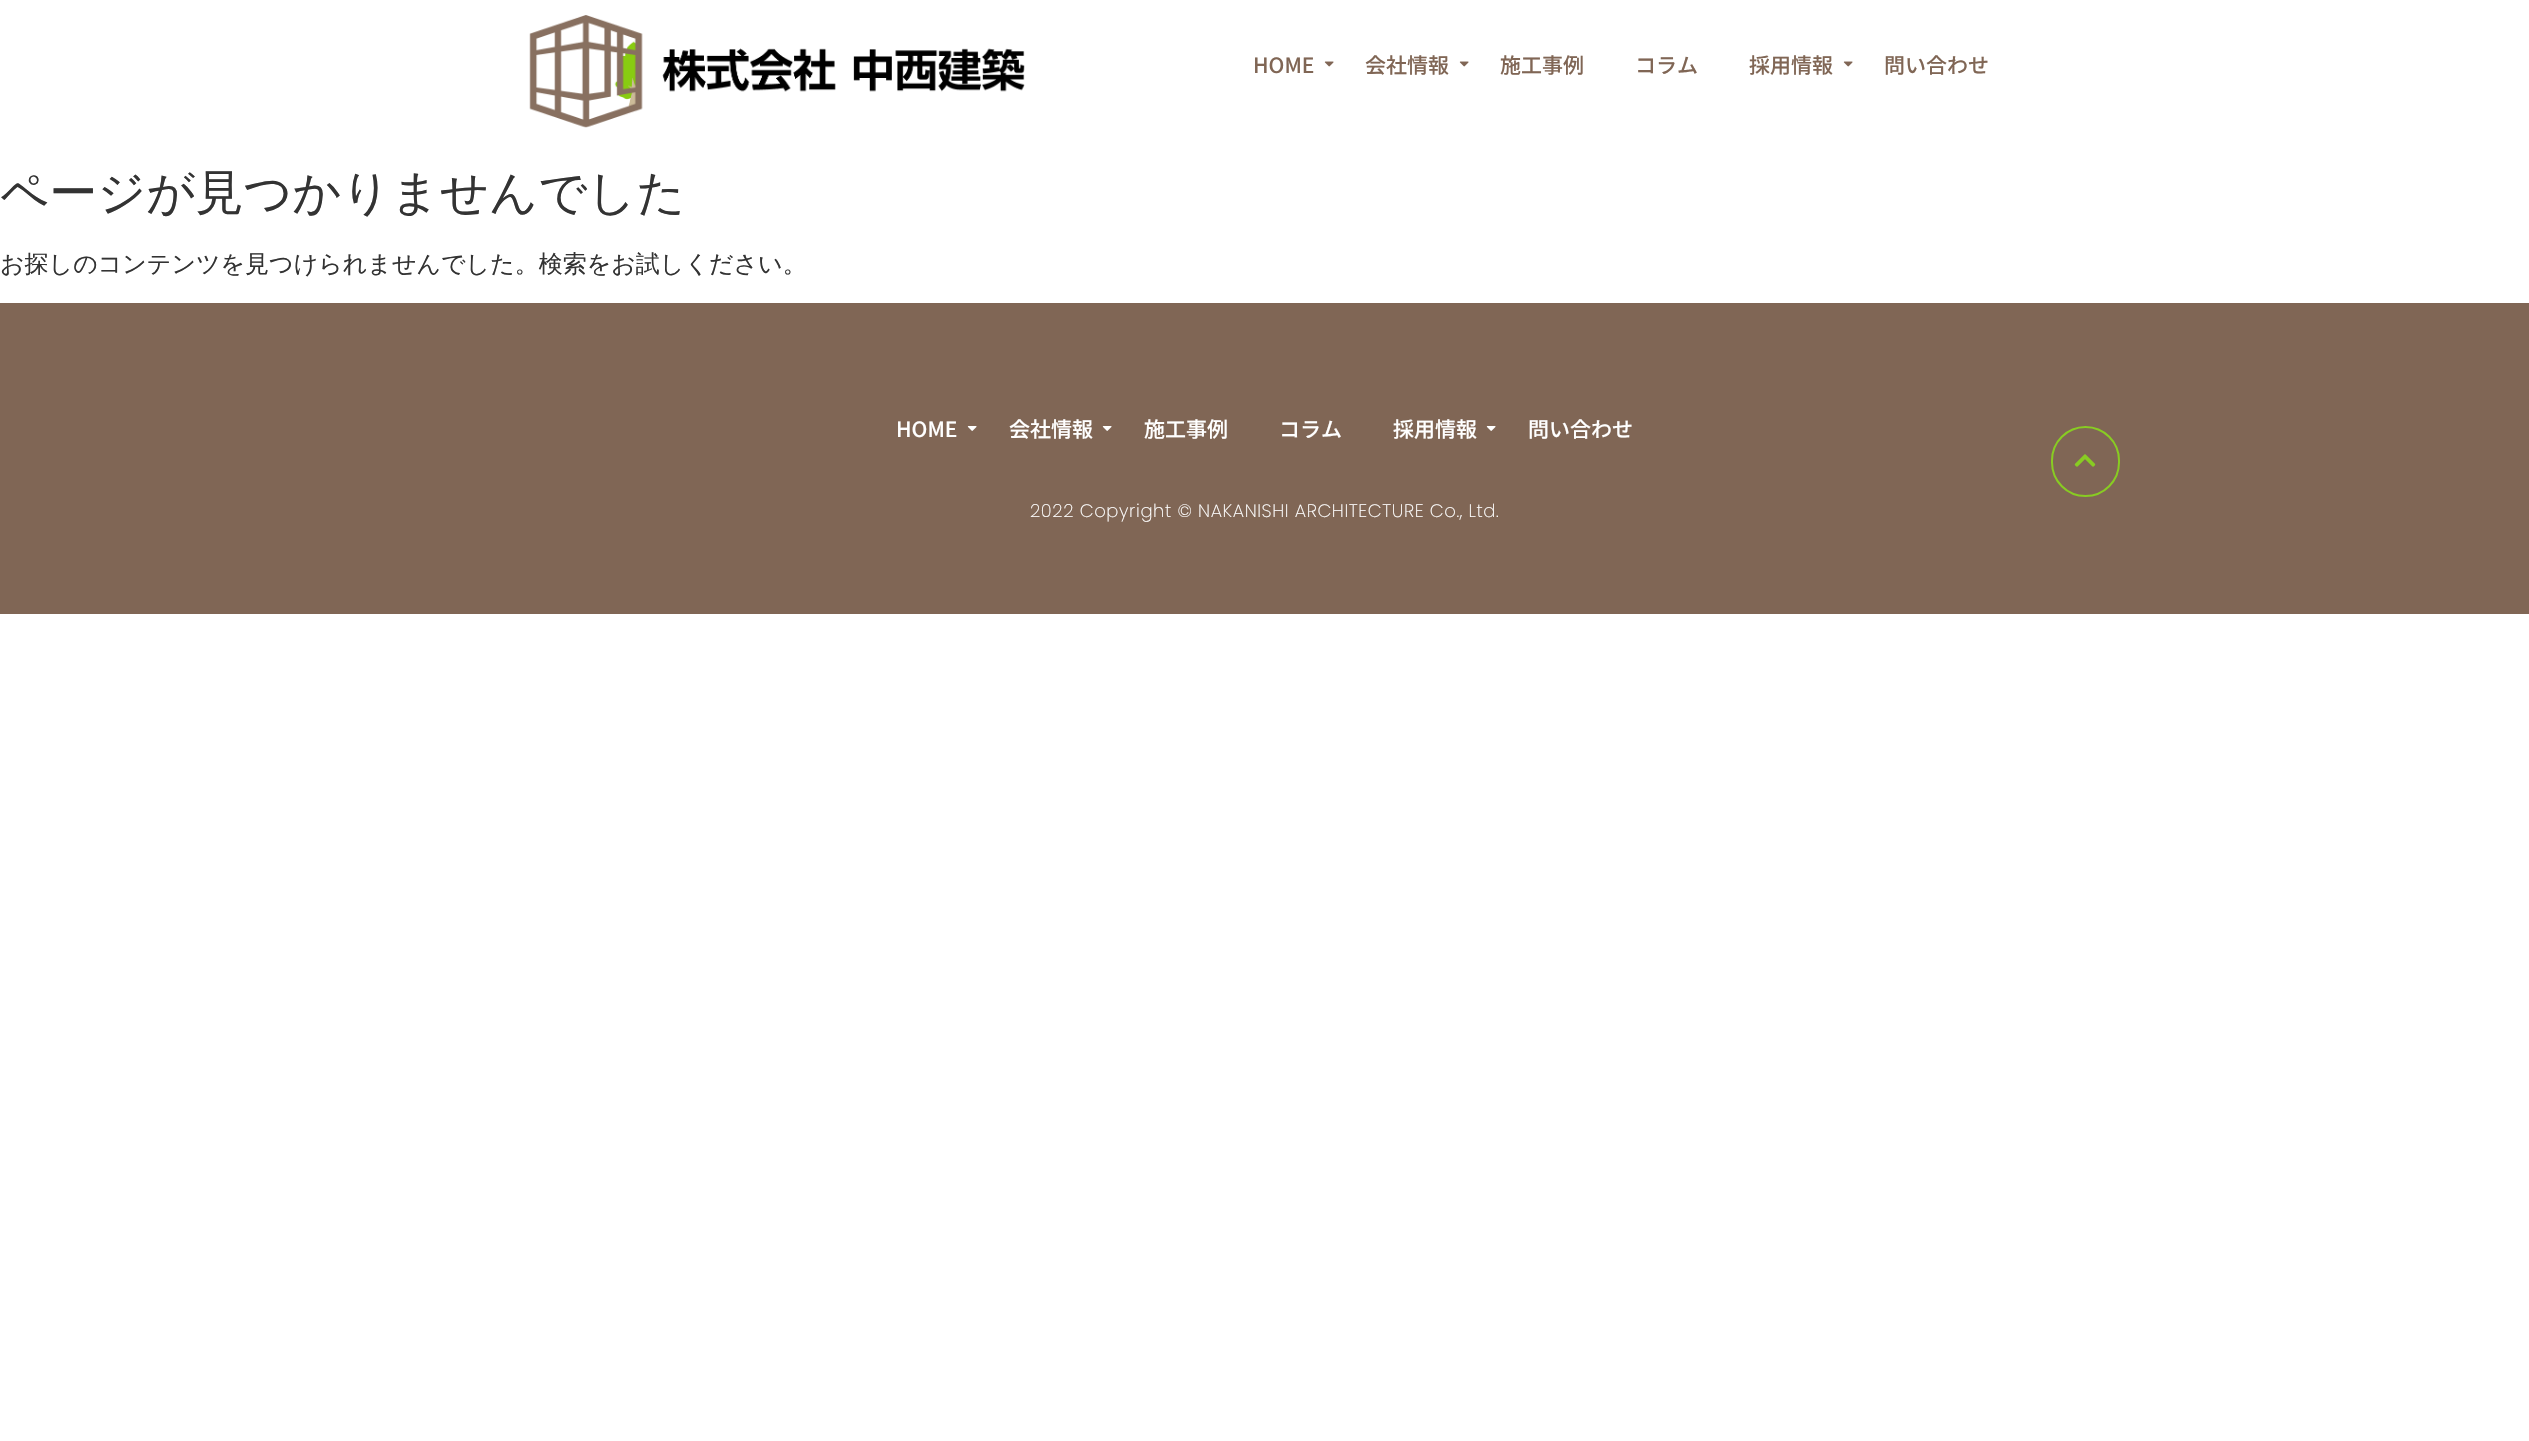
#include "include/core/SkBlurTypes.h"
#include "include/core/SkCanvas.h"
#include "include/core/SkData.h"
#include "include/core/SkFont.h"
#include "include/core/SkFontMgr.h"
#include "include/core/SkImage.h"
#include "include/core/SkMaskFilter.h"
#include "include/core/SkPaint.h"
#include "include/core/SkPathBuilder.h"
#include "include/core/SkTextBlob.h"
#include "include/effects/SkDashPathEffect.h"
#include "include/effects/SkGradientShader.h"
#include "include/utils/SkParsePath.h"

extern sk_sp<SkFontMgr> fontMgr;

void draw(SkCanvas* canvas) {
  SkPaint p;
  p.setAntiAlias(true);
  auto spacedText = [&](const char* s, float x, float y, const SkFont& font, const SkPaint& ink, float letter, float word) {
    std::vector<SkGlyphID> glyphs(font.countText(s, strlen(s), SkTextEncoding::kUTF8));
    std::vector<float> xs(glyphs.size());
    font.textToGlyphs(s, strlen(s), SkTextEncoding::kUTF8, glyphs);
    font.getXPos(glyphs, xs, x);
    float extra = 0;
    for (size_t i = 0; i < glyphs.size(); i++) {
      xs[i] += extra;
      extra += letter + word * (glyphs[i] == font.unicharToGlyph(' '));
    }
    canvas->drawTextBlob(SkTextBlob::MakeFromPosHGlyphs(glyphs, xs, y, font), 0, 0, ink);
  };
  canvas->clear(SK_ColorWHITE);
  canvas->drawImageRect(SkImages::DeferredFromEncodedData(SkData::MakeFromFileName("images/1.png")), SkRect::MakeLTRB(529, 15, 1025, 128), SkSamplingOptions());
  canvas->drawImageRect(SkImages::DeferredFromEncodedData(SkData::MakeFromFileName("images/2.png")), SkRect::MakeLTRB(1324, 61, 1334, 67), SkSamplingOptions());
  canvas->drawImageRect(SkImages::DeferredFromEncodedData(SkData::MakeFromFileName("images/2.png")), SkRect::MakeLTRB(1459, 61, 1469, 67), SkSamplingOptions());
  canvas->drawImageRect(SkImages::DeferredFromEncodedData(SkData::MakeFromFileName("images/2.png")), SkRect::MakeLTRB(1843, 61, 1853, 67), SkSamplingOptions());
  p.setColor(SkColorSetRGB(128, 102, 85));
  canvas->drawRect(SkRect::MakeLTRB(0, 303, 2529, 614), p);
  canvas->drawImageRect(SkImages::DeferredFromEncodedData(SkData::MakeFromFileName("images/3.png")), SkRect::MakeLTRB(967, 426, 977, 431), SkSamplingOptions());
  canvas->drawImageRect(SkImages::DeferredFromEncodedData(SkData::MakeFromFileName("images/3.png")), SkRect::MakeLTRB(1102, 426, 1112, 431), SkSamplingOptions());
  canvas->drawImageRect(SkImages::DeferredFromEncodedData(SkData::MakeFromFileName("images/3.png")), SkRect::MakeLTRB(1486, 426, 1496, 431), SkSamplingOptions());
  p.setStyle(SkPaint::kStroke_Style);
  p.setStrokeWidth(2);
  p.setColor(SkColorSetRGB(136, 204, 34));
  canvas->drawRoundRect(SkRect::MakeLTRB(2052, 427, 2119, 496), 33.5f, 33.5f, p);
  canvas->drawImageRect(SkImages::DeferredFromEncodedData(SkData::MakeFromFileName("images/4.png")), SkRect::MakeLTRB(2074, 454, 2096, 467), SkSamplingOptions());
  SkFont font1(fontMgr->matchFamilyStyle("Noto Sans JP", SkFontStyle(500, SkFontStyle::kNormal_Width, SkFontStyle::kUpright_Slant)), 21);
  font1.setSubpixel(true);
  p.setStyle(SkPaint::kFill_Style);
  p.setColor(SkColorSetRGB(128, 102, 85));
  canvas->drawString("HOME", 1253, 73, font1, p);
  canvas->drawString("会社情報", 1365, 73, font1, p);
  canvas->drawString("施工事例", 1500, 73, font1, p);
  canvas->drawString("コラム", 1635, 73, font1, p);
  canvas->drawString("採用情報", 1749, 73, font1, p);
  canvas->drawString("問い合わせ", 1884, 73, font1, p);
  SkFont font2(fontMgr->matchFamilyStyle("WenQuanYi Zen Hei", SkFontStyle(500, SkFontStyle::kNormal_Width, SkFontStyle::kUpright_Slant)), 48);
  font2.setSubpixel(true);
  p.setColor(SkColorSetRGB(51, 51, 51));
  canvas->drawString("ページが見つかりませんでした", 0, 209, font2, p);
  SkFont font3(fontMgr->matchFamilyStyle("WenQuanYi Zen Hei", SkFontStyle(500, SkFontStyle::kNormal_Width, SkFontStyle::kUpright_Slant)), 24);
  font3.setSubpixel(true);
  canvas->drawString("お探しのコンテンツを見つけられませんでした。検索をお試しください。", 0, 272, font3, p);
  p.setColor(SK_ColorWHITE);
  canvas->drawString("HOME", 896, 437, font1, p);
  canvas->drawString("会社情報", 1009, 437, font1, p);
  canvas->drawString("施工事例", 1144, 437, font1, p);
  canvas->drawString("コラム", 1279, 437, font1, p);
  canvas->drawString("採用情報", 1393, 437, font1, p);
  canvas->drawString("問い合わせ", 1528, 437, font1, p);
  SkFont font4(fontMgr->matchFamilyStyle("Poppins", SkFontStyle(200, SkFontStyle::kNormal_Width, SkFontStyle::kUpright_Slant)), 18);
  font4.setSubpixel(true);
  spacedText("2022 Copyright © NAKANISHI ARCHITECTURE Co., Ltd.", 1030, 517, font4, p, 0.6f, 0);
}
